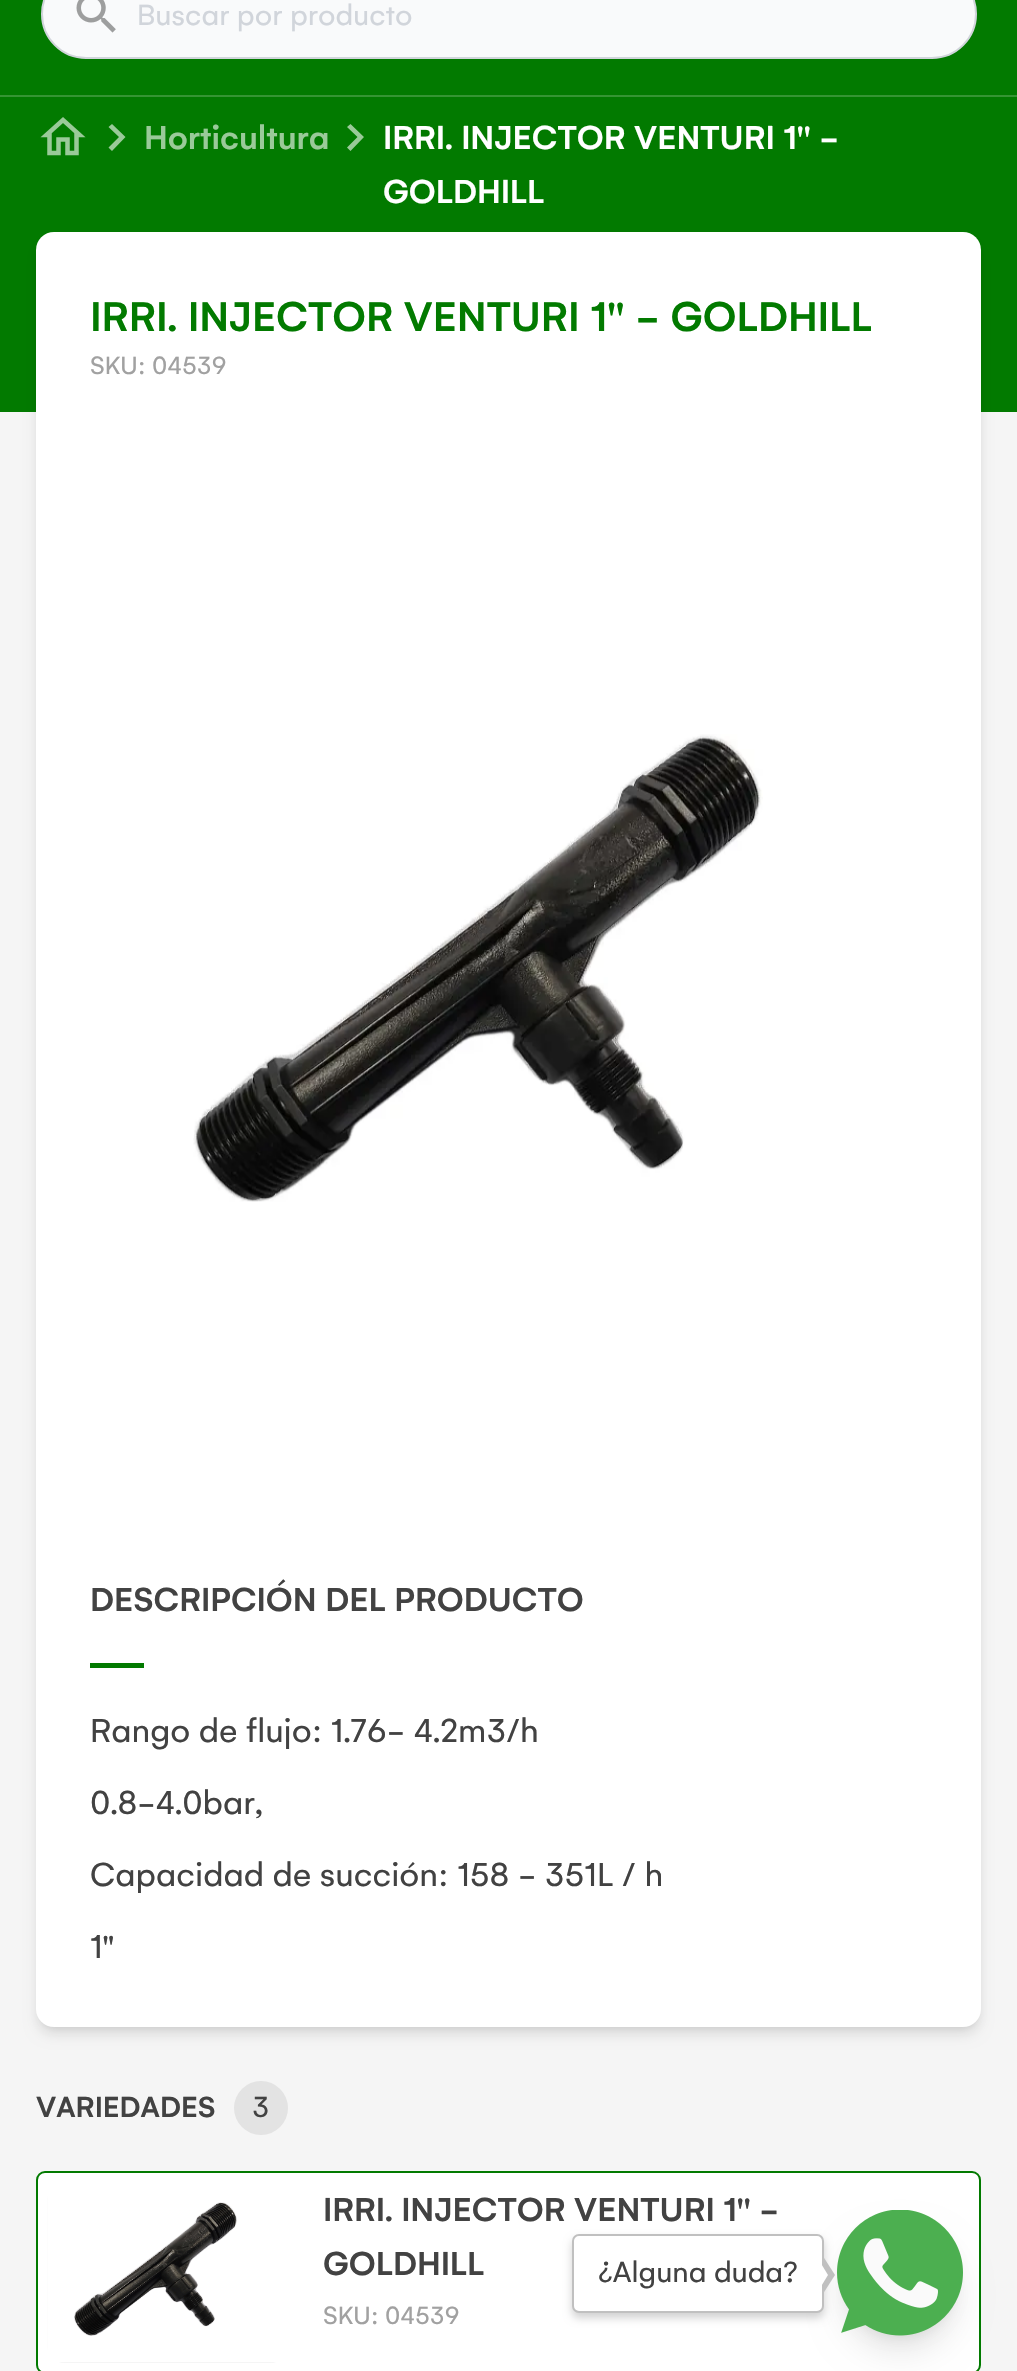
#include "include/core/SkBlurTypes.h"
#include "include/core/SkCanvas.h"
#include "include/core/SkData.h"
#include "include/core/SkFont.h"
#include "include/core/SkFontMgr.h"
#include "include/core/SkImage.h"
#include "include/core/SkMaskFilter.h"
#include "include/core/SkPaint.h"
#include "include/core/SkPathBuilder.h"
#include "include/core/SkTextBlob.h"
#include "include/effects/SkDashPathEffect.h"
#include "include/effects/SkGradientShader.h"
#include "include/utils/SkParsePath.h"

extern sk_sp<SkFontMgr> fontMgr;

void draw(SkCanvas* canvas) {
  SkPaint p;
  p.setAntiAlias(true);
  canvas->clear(SkColorSetRGB(245, 245, 245));
  p.setColor(SkColorSetRGB(2, 122, 0));
  canvas->drawRect(SkRect::MakeLTRB(0, 0, 1017, 95), p);
  p.setColor(SkColorSetRGB(249, 250, 251));
  canvas->drawRoundRect(SkRect::MakeLTRB(42, -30, 976, 58), 44, 44, p);
  p.setStyle(SkPaint::kStroke_Style);
  p.setStrokeWidth(2);
  p.setColor(SkColorSetRGB(209, 213, 219));
  canvas->drawRoundRect(SkRect::MakeLTRB(42, -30, 976, 58), 44, 44, p);
  canvas->drawImageRect(SkImages::DeferredFromEncodedData(SkData::MakeFromFileName("images/1.png")), SkRect::MakeLTRB(76, 0, 116, 33), SkSamplingOptions());
  p.setStyle(SkPaint::kFill_Style);
  p.setColor(SkColorSetRGB(53, 149, 51));
  canvas->drawRect(SkRect::MakeLTRB(0, 95, 1017, 97), p);
  p.setColor(SkColorSetRGB(2, 122, 0));
  canvas->drawRect(SkRect::MakeLTRB(0, 97, 1017, 412), p);
  canvas->drawImageRect(SkImages::DeferredFromEncodedData(SkData::MakeFromFileName("images/2.png")), SkRect::MakeLTRB(40, 117, 86, 156), SkSamplingOptions());
  p.setColor(SkColorSetRGB(154, 202, 153));
  canvas->drawPath(SkPathBuilder().moveTo(112, 124).lineTo(108.5f, 127).lineTo(119, 137).lineTo(108.5f, 147.5f).lineTo(112, 151).lineTo(125.5f, 137).close().detach(), p);
  canvas->drawPath(SkPathBuilder().moveTo(350.5f, 124).lineTo(347, 127).lineTo(357.5f, 137).lineTo(347, 147.5f).lineTo(350.5f, 151).lineTo(364, 137).close().detach(), p);
  p.setColor(SkColorSetARGB(26, 0, 0, 0));
  p.setMaskFilter(SkMaskFilter::MakeBlur(kNormal_SkBlurStyle, 4.5f));
  canvas->drawRoundRect(SkRect::MakeLTRB(41, 241, 977, 2027), 14, 14, p);
  p.setMaskFilter(nullptr);
  p.setMaskFilter(SkMaskFilter::MakeBlur(kNormal_SkBlurStyle, 7));
  canvas->drawRoundRect(SkRect::MakeLTRB(38, 243, 979, 2034), 16, 16, p);
  p.setMaskFilter(nullptr);
  p.setColor(SK_ColorWHITE);
  canvas->drawRoundRect(SkRect::MakeLTRB(36, 232, 981, 2027), 18, 18, p);
  canvas->drawImageRect(SkImages::DeferredFromEncodedData(SkData::MakeFromFileName("images/3.png")), SkRect::MakeLTRB(193, 734, 763, 1202), SkSamplingOptions());
  p.setColor(SkColorSetRGB(2, 122, 0));
  canvas->drawRect(SkRect::MakeLTRB(90, 1663, 144, 1668), p);
  p.setColor(SkColorSetRGB(227, 227, 227));
  canvas->drawCircle(261, 2108, 27, p);
  p.setColor(SK_ColorWHITE);
  canvas->drawRoundRect(SkRect::MakeLTRB(37, 2172, 980, 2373), 8, 8, p);
  p.setStyle(SkPaint::kStroke_Style);
  p.setColor(SkColorSetRGB(2, 122, 0));
  canvas->drawRoundRect(SkRect::MakeLTRB(37, 2172, 980, 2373), 8, 8, p);
  p.setStyle(SkPaint::kFill_Style);
  p.setColor(SkColorSetRGB(245, 245, 245));
  canvas->drawRoundRect(SkRect::MakeLTRB(47, 2183, 288, 2363), 18, 18, p);
  canvas->drawImageRect(SkImages::DeferredFromEncodedData(SkData::MakeFromFileName("images/4.png")), SkRect::MakeLTRB(47, 2183, 288, 2362), SkSamplingOptions());
  p.setColor(SkColorSetARGB(26, 0, 0, 0));
  p.setMaskFilter(SkMaskFilter::MakeBlur(kNormal_SkBlurStyle, 7));
  canvas->drawRoundRect(SkRect::MakeLTRB(846, 2228, 954, 2336), 54, 54, p);
  p.setMaskFilter(nullptr);
  p.setMaskFilter(SkMaskFilter::MakeBlur(kNormal_SkBlurStyle, 17));
  canvas->drawRoundRect(SkRect::MakeLTRB(844, 2239, 956, 2351), 56, 56, p);
  p.setMaskFilter(nullptr);
  p.setColor(SkColorSetARGB(26, 255, 255, 255));
  canvas->drawCircle(900, 2273, 63, p);
  canvas->drawImageRect(SkImages::DeferredFromEncodedData(SkData::MakeFromFileName("images/5.png")), SkRect::MakeLTRB(837, 2210, 963, 2336), SkSamplingOptions());
  p.setColor(SkColorSetARGB(46, 0, 0, 0));
  p.setMaskFilter(SkMaskFilter::MakeBlur(kNormal_SkBlurStyle, 4.5f));
  canvas->drawRoundRect(SkRect::MakeLTRB(572, 2239, 824, 2318), 7, 7, p);
  p.setMaskFilter(nullptr);
  p.setColor(SK_ColorWHITE);
  canvas->drawRoundRect(SkRect::MakeLTRB(573, 2235, 823, 2312), 6, 6, p);
  p.setStyle(SkPaint::kStroke_Style);
  p.setColor(SkColorSetRGB(192, 192, 192));
  canvas->drawRoundRect(SkRect::MakeLTRB(573, 2235, 823, 2312), 6, 6, p);
  p.setStyle(SkPaint::kFill_Style);
  canvas->drawPath(SkPathBuilder().moveTo(823.5f, 2293).lineTo(823.5f, 2257).lineTo(835, 2275).close().detach(), p);
  p.setColor(SK_ColorWHITE);
  canvas->drawPath(SkPathBuilder().moveTo(817, 2293).lineTo(817, 2257).lineTo(828, 2275).close().detach(), p);
  SkFont font1(fontMgr->matchFamilyStyle("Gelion", SkFontStyle::Normal()), 31.5f);
  font1.setSubpixel(true);
  p.setColor(SkColorSetRGB(209, 213, 219));
  canvas->drawString("Buscar por producto", 137, 25, font1, p);
  SkFont font2(fontMgr->matchFamilyStyle("Gelion", SkFontStyle(500, SkFontStyle::kNormal_Width, SkFontStyle::kUpright_Slant)), 36);
  font2.setSubpixel(true);
  p.setColor(SkColorSetRGB(154, 202, 153));
  canvas->drawString("Horticultura", 144, 149, font2, p);
  p.setColor(SK_ColorWHITE);
  canvas->drawString("IRRI. INJECTOR VENTURI 1'' -", 383, 149, font2, p);
  canvas->drawString("GOLDHILL", 383, 203, font2, p);
  SkFont font3(fontMgr->matchFamilyStyle("Gelion", SkFontStyle(500, SkFontStyle::kNormal_Width, SkFontStyle::kUpright_Slant)), 45);
  font3.setSubpixel(true);
  p.setColor(SkColorSetRGB(2, 122, 0));
  canvas->drawString("IRRI. INJECTOR VENTURI 1'' - GOLDHILL", 90, 331, font3, p);
  SkFont font4(fontMgr->matchFamilyStyle("Gelion", SkFontStyle::Normal()), 27);
  font4.setSubpixel(true);
  p.setColor(SkColorSetRGB(161, 161, 161));
  canvas->drawString("SKU: 04539", 90, 374, font4, p);
  p.setColor(SkColorSetRGB(66, 66, 66));
  canvas->drawString("DESCRIPCIÓN DEL PRODUCTO", 90, 1611, font2, p);
  SkFont font5(fontMgr->matchFamilyStyle("Gelion", SkFontStyle::Normal()), 36);
  font5.setSubpixel(true);
  canvas->drawString("Rango de flujo: 1.76- 4.2m3/h", 90, 1742, font5, p);
  canvas->drawString("0.8-4.0bar,", 90, 1814, font5, p);
  canvas->drawString("Capacidad de succión: 158 - 351L / h", 90, 1886, font5, p);
  canvas->drawString("1\"", 90, 1958, font5, p);
  SkFont font6(fontMgr->matchFamilyStyle("Gelion", SkFontStyle(500, SkFontStyle::kNormal_Width, SkFontStyle::kUpright_Slant)), 31.5f);
  font6.setSubpixel(true);
  canvas->drawString("VARIEDADES", 36, 2117, font6, p);
  canvas->drawString("3", 252, 2117, font1, p);
  canvas->drawString("IRRI. INJECTOR VENTURI 1'' -", 323, 2221, font2, p);
  canvas->drawString("GOLDHILL", 323, 2275, font2, p);
  p.setColor(SkColorSetRGB(161, 161, 161));
  canvas->drawString("SKU: 04539", 323, 2324, font4, p);
  p.setColor(SkColorSetRGB(66, 66, 66));
  canvas->drawString("¿Alguna duda?", 598, 2282, font1, p);
}
